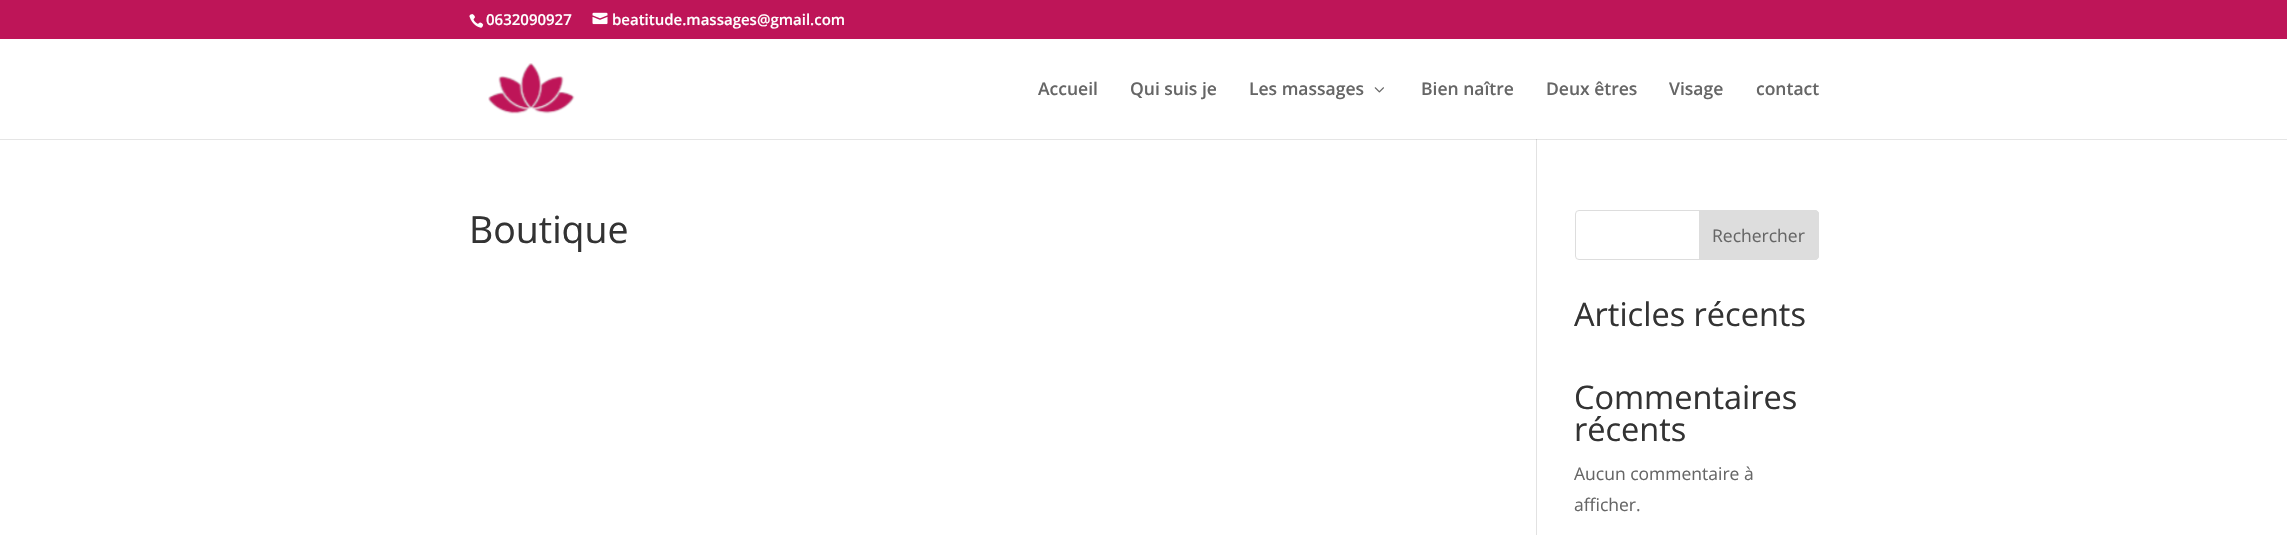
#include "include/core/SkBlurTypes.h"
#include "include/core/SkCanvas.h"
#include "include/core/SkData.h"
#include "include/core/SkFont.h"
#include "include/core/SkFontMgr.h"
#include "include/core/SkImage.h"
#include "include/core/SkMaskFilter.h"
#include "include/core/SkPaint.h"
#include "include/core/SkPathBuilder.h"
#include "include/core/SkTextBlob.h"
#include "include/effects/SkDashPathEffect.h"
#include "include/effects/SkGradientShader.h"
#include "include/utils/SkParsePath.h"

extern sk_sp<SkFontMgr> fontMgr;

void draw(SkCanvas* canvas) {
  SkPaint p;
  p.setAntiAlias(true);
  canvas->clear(SK_ColorWHITE);
  p.setColor(SkColorSetRGB(190, 21, 88));
  canvas->drawRect(SkRect::MakeLTRB(0, 0, 2287, 39), p);
  canvas->drawImageRect(SkImages::DeferredFromEncodedData(SkData::MakeFromFileName("images/1.png")), SkRect::MakeLTRB(469, 14, 484, 28), SkSamplingOptions());
  canvas->drawImageRect(SkImages::DeferredFromEncodedData(SkData::MakeFromFileName("images/2.png")), SkRect::MakeLTRB(592, 12, 608, 25), SkSamplingOptions());
  p.setColor(SkColorSetRGB(226, 226, 226));
  canvas->drawRect(SkRect::MakeLTRB(1536, 138, 1537, 535), p);
  p.setColor(SkColorSetARGB(26, 0, 0, 0));
  canvas->drawPath(SkPathBuilder().moveTo(0, 139).lineTo(0, 140).lineTo(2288, 140).lineTo(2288, 40).lineTo(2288, 139).close().detach(), p);
  p.setColor(SK_ColorWHITE);
  canvas->drawRect(SkRect::MakeLTRB(1536, 138, 1537, 139), p);
  canvas->drawImageRect(SkImages::DeferredFromEncodedData(SkData::MakeFromFileName("images/3.png")), SkRect::MakeLTRB(488, 63, 575, 114), SkSamplingOptions());
  canvas->drawImageRect(SkImages::DeferredFromEncodedData(SkData::MakeFromFileName("images/4.png")), SkRect::MakeLTRB(1374, 87, 1384, 93), SkSamplingOptions());
  p.setStyle(SkPaint::kStroke_Style);
  p.setStrokeWidth(1);
  p.setColor(SkColorSetRGB(221, 221, 221));
  canvas->drawRoundRect(SkRect::MakeLTRB(1575.5f, 210.5f, 1818.5f, 259.5f), 3.5f, 3.5f, p);
  p.setStyle(SkPaint::kFill_Style);
  canvas->drawPath(SkPathBuilder().moveTo(1699.5f, 210.5f).lineTo(1815, 210.5f).cubicTo(1817, 210.5f, 1818.5f, 212, 1818.5f, 214).lineTo(1818.5f, 256).cubicTo(1818.5f, 258, 1817, 259.5f, 1815, 259.5f).lineTo(1699.5f, 259.5f).close().detach(), p);
  p.setStyle(SkPaint::kStroke_Style);
  canvas->drawPath(SkPathBuilder().moveTo(1699.5f, 210.5f).lineTo(1815, 210.5f).cubicTo(1817, 210.5f, 1818.5f, 212, 1818.5f, 214).lineTo(1818.5f, 256).cubicTo(1818.5f, 258, 1817, 259.5f, 1815, 259.5f).lineTo(1699.5f, 259.5f).close().detach(), p);
  SkFont font1(fontMgr->matchFamilyStyle("Open Sans", SkFontStyle(600, SkFontStyle::kNormal_Width, SkFontStyle::kUpright_Slant)), 15);
  font1.setSubpixel(true);
  p.setStyle(SkPaint::kFill_Style);
  p.setColor(SK_ColorWHITE);
  canvas->drawString("0632090927", 486, 25, font1, p);
  canvas->drawString("beatitude.massages@gmail.com", 612, 25, font1, p);
  SkFont font2(fontMgr->matchFamilyStyle("Open Sans", SkFontStyle(600, SkFontStyle::kNormal_Width, SkFontStyle::kUpright_Slant)), 17.5f);
  font2.setSubpixel(true);
  p.setColor(SkColorSetRGB(102, 102, 102));
  canvas->drawString("Accueil", 1038, 95, font2, p);
  canvas->drawString("Qui suis je", 1130, 95, font2, p);
  canvas->drawString("Les massages", 1249, 95, font2, p);
  canvas->drawString("Bien naître", 1421, 95, font2, p);
  canvas->drawString("Deux êtres", 1546, 95, font2, p);
  canvas->drawString("Visage", 1669, 95, font2, p);
  canvas->drawString("contact", 1756, 95, font2, p);
  SkFont font3(fontMgr->matchFamilyStyle("Open Sans", SkFontStyle::Normal()), 37.5f);
  font3.setSubpixel(true);
  p.setColor(SkColorSetRGB(51, 51, 51));
  canvas->drawString("Boutique", 469, 243, font3, p);
  SkFont font4(fontMgr->matchFamilyStyle("Open Sans", SkFontStyle::Normal()), 17.5f);
  font4.setSubpixel(true);
  p.setColor(SkColorSetRGB(102, 102, 102));
  canvas->drawString("Rechercher", 1712, 242, font4, p);
  SkFont font5(fontMgr->matchFamilyStyle("Open Sans", SkFontStyle::Normal()), 32.5f);
  font5.setSubpixel(true);
  p.setColor(SkColorSetRGB(51, 51, 51));
  canvas->drawString("Articles récents", 1574, 326, font5, p);
  canvas->drawString("Commentaires", 1574, 409, font5, p);
  canvas->drawString("récents", 1574, 441, font5, p);
  p.setColor(SkColorSetRGB(102, 102, 102));
  canvas->drawString("Aucun commentaire à", 1574, 480, font4, p);
  canvas->drawString("afficher.", 1574, 511, font4, p);
}
